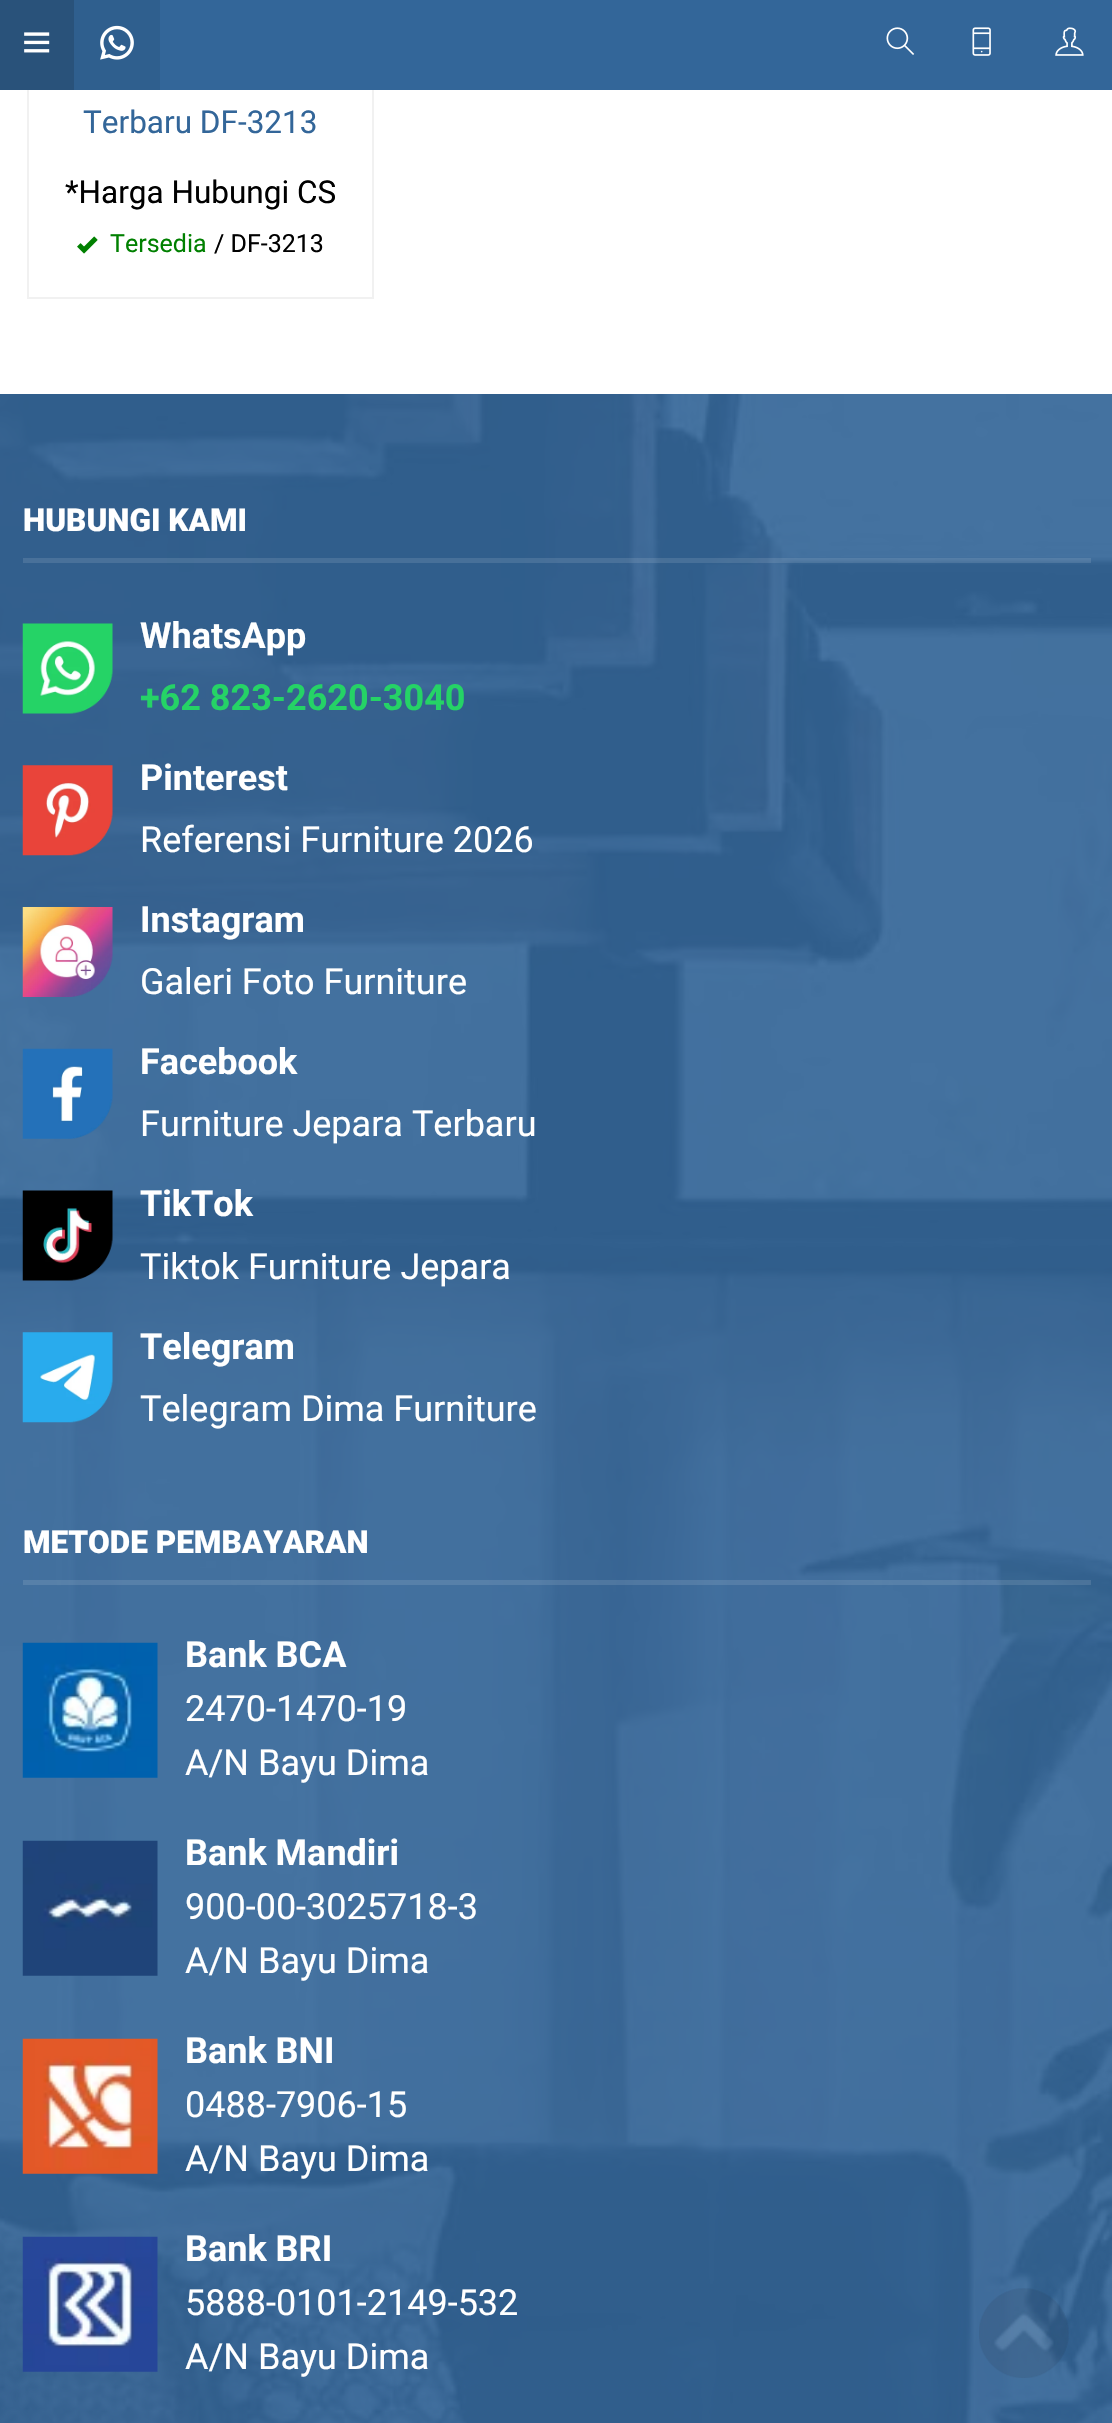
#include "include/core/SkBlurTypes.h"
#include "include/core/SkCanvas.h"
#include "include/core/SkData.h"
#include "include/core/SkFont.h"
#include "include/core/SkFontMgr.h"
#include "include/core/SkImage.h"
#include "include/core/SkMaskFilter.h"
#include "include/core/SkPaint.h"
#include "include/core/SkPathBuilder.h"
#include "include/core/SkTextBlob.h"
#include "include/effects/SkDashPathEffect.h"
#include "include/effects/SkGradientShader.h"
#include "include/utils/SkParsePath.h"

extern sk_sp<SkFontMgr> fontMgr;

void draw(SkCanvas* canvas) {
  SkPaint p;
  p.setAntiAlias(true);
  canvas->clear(SK_ColorWHITE);
  p.setStyle(SkPaint::kStroke_Style);
  p.setStrokeWidth(2);
  p.setColor(SkColorSetRGB(241, 241, 241));
  canvas->drawRect(SkRect::MakeLTRB(28, -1, 373, 298), p);
  p.setStyle(SkPaint::kFill_Style);
  p.setColor(SkColorSetRGB(51, 102, 153));
  canvas->drawRect(SkRect::MakeLTRB(160, 0, 1112, 90), p);
  p.setColor(SkColorSetRGB(41, 82, 122));
  canvas->drawRect(SkRect::MakeLTRB(0, 0, 74, 90), p);
  canvas->drawImageRect(SkImages::DeferredFromEncodedData(SkData::MakeFromFileName("images/1.png")), SkRect::MakeLTRB(24, 32, 50, 53), SkSamplingOptions());
  p.setColor(SkColorSetRGB(47, 95, 142));
  canvas->drawRect(SkRect::MakeLTRB(74, 0, 160, 90), p);
  canvas->drawImageRect(SkImages::DeferredFromEncodedData(SkData::MakeFromFileName("images/2.png")), SkRect::MakeLTRB(100, 25, 134, 60), SkSamplingOptions());
  canvas->drawImageRect(SkImages::DeferredFromEncodedData(SkData::MakeFromFileName("images/3.png")), SkRect::MakeLTRB(886, 27, 915, 55), SkSamplingOptions());
  canvas->drawImageRect(SkImages::DeferredFromEncodedData(SkData::MakeFromFileName("images/4.png")), SkRect::MakeLTRB(972, 27, 991, 56), SkSamplingOptions());
  canvas->drawImageRect(SkImages::DeferredFromEncodedData(SkData::MakeFromFileName("images/5.png")), SkRect::MakeLTRB(1055, 27, 1084, 56), SkSamplingOptions());
  canvas->drawImageRect(SkImages::DeferredFromEncodedData(SkData::MakeFromFileName("images/6.png")), SkRect::MakeLTRB(77, 236, 98, 254), SkSamplingOptions());
  p.setColor(SkColorSetRGB(51, 102, 153));
  canvas->drawRect(SkRect::MakeLTRB(0, 394, 1112, 2423), p);
  canvas->drawImageRect(SkImages::DeferredFromEncodedData(SkData::MakeFromFileName("images/7.png")), SkRect::MakeLTRB(0, 394, 1112, 2423), SkSamplingOptions());
  p.setColor(SkColorSetARGB(28, 255, 255, 255));
  canvas->drawRect(SkRect::MakeLTRB(23, 558, 1091, 563), p);
  canvas->drawImageRect(SkImages::DeferredFromEncodedData(SkData::MakeFromFileName("images/8.png")), SkRect::MakeLTRB(22, 623, 113, 714), SkSamplingOptions());
  canvas->drawImageRect(SkImages::DeferredFromEncodedData(SkData::MakeFromFileName("images/9.png")), SkRect::MakeLTRB(22, 765, 113, 856), SkSamplingOptions());
  canvas->drawImageRect(SkImages::DeferredFromEncodedData(SkData::MakeFromFileName("images/10.png")), SkRect::MakeLTRB(22, 907, 113, 997), SkSamplingOptions());
  canvas->drawImageRect(SkImages::DeferredFromEncodedData(SkData::MakeFromFileName("images/11.png")), SkRect::MakeLTRB(22, 1048, 113, 1139), SkSamplingOptions());
  canvas->drawImageRect(SkImages::DeferredFromEncodedData(SkData::MakeFromFileName("images/12.png")), SkRect::MakeLTRB(22, 1190, 113, 1281), SkSamplingOptions());
  canvas->drawImageRect(SkImages::DeferredFromEncodedData(SkData::MakeFromFileName("images/13.png")), SkRect::MakeLTRB(22, 1332, 113, 1423), SkSamplingOptions());
  canvas->drawRect(SkRect::MakeLTRB(23, 1580, 1091, 1585), p);
  canvas->drawImageRect(SkImages::DeferredFromEncodedData(SkData::MakeFromFileName("images/14.png")), SkRect::MakeLTRB(22, 1642, 158, 1778), SkSamplingOptions());
  canvas->drawImageRect(SkImages::DeferredFromEncodedData(SkData::MakeFromFileName("images/15.png")), SkRect::MakeLTRB(22, 1840, 158, 1976), SkSamplingOptions());
  canvas->drawImageRect(SkImages::DeferredFromEncodedData(SkData::MakeFromFileName("images/16.png")), SkRect::MakeLTRB(22, 2038, 158, 2174), SkSamplingOptions());
  canvas->drawImageRect(SkImages::DeferredFromEncodedData(SkData::MakeFromFileName("images/17.png")), SkRect::MakeLTRB(22, 2236, 158, 2372), SkSamplingOptions());
  canvas->drawImageRect(SkImages::DeferredFromEncodedData(SkData::MakeFromFileName("images/18.png")), SkRect::MakeLTRB(979, 2288, 1069, 2378), SkSamplingOptions());
  SkFont font1(fontMgr->matchFamilyStyle("Roboto", SkFontStyle::Normal()), 31.5f);
  font1.setSubpixel(true);
  p.setColor(SkColorSetRGB(51, 102, 153));
  canvas->drawString("Terbaru DF-3213", 83, 133, font1, p);
  p.setColor(SK_ColorBLACK);
  canvas->drawString("*Harga Hubungi CS", 65, 203, font1, p);
  SkFont font2(fontMgr->matchFamilyStyle("Roboto", SkFontStyle::Normal()), 25);
  font2.setSubpixel(true);
  p.setColor(SkColorSetRGB(0, 128, 0));
  canvas->drawString("Tersedia", 110, 252, font2, p);
  p.setColor(SK_ColorBLACK);
  canvas->drawString("/ DF-3213", 214, 252, font2, p);
  SkFont font3(fontMgr->matchFamilyStyle("Roboto", SkFontStyle(900, SkFontStyle::kNormal_Width, SkFontStyle::kUpright_Slant)), 31.5f);
  font3.setSubpixel(true);
  p.setColor(SK_ColorWHITE);
  canvas->drawString("HUBUNGI KAMI", 23, 531, font3, p);
  SkFont font4(fontMgr->matchFamilyStyle("Roboto", SkFontStyle::Bold()), 36);
  font4.setSubpixel(true);
  canvas->drawString("WhatsApp", 140, 648, font4, p);
  p.setColor(SkColorSetRGB(37, 211, 102));
  canvas->drawString("+62 823-2620-3040", 140, 710, font4, p);
  p.setColor(SK_ColorWHITE);
  canvas->drawString("Pinterest", 140, 790, font4, p);
  SkFont font5(fontMgr->matchFamilyStyle("Roboto", SkFontStyle::Normal()), 36);
  font5.setSubpixel(true);
  canvas->drawString("Referensi Furniture 2026", 140, 852, font5, p);
  canvas->drawString("Instagram", 140, 932, font4, p);
  canvas->drawString("Galeri Foto Furniture", 140, 994, font5, p);
  canvas->drawString("Facebook", 140, 1074, font4, p);
  canvas->drawString("Furniture Jepara Terbaru", 140, 1136, font5, p);
  canvas->drawString("TikTok", 140, 1216, font4, p);
  canvas->drawString("Tiktok Furniture Jepara", 140, 1279, font5, p);
  canvas->drawString("Telegram", 140, 1359, font4, p);
  canvas->drawString("Telegram Dima Furniture", 140, 1421, font5, p);
  canvas->drawString("METODE PEMBAYARAN", 23, 1553, font3, p);
  canvas->drawString("Bank BCA", 185, 1667, font4, p);
  canvas->drawString("2470-1470-19", 185, 1721, font5, p);
  canvas->drawString("A/N Bayu Dima", 185, 1775, font5, p);
  canvas->drawString("Bank Mandiri", 185, 1865, font4, p);
  canvas->drawString("900-00-3025718-3", 185, 1919, font5, p);
  canvas->drawString("A/N Bayu Dima", 185, 1973, font5, p);
  canvas->drawString("Bank BNI", 185, 2063, font4, p);
  canvas->drawString("0488-7906-15", 185, 2117, font5, p);
  canvas->drawString("A/N Bayu Dima", 185, 2171, font5, p);
  canvas->drawString("Bank BRI", 185, 2261, font4, p);
  canvas->drawString("5888-0101-2149-532", 185, 2315, font5, p);
  canvas->drawString("A/N Bayu Dima", 185, 2369, font5, p);
}
